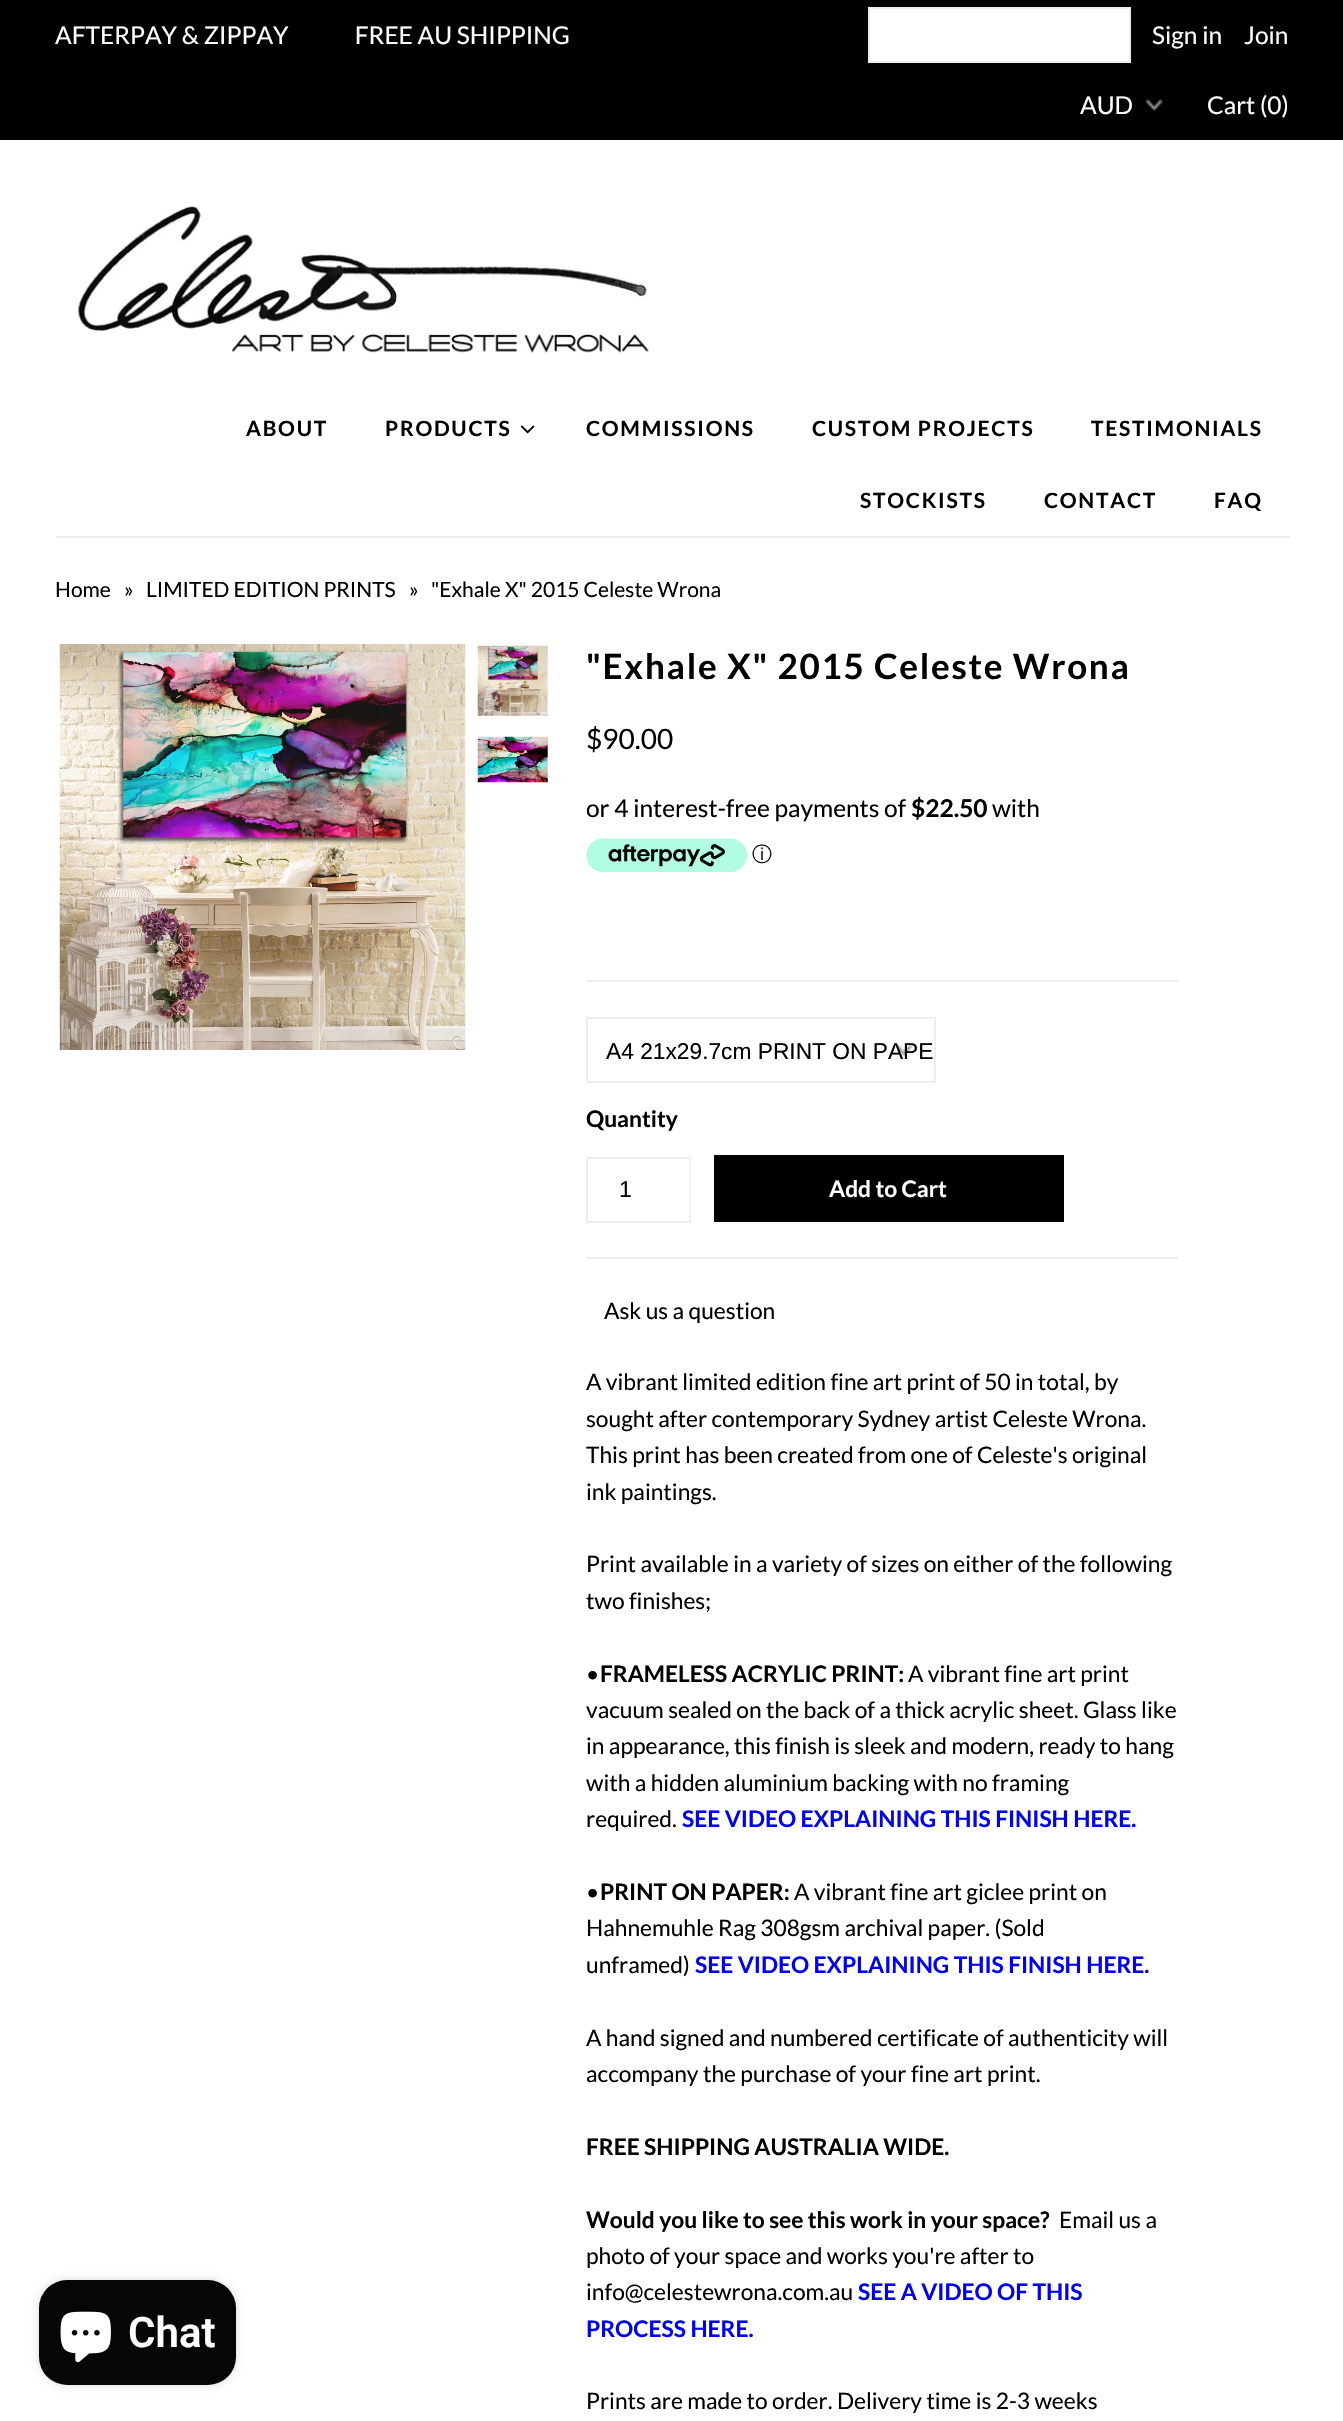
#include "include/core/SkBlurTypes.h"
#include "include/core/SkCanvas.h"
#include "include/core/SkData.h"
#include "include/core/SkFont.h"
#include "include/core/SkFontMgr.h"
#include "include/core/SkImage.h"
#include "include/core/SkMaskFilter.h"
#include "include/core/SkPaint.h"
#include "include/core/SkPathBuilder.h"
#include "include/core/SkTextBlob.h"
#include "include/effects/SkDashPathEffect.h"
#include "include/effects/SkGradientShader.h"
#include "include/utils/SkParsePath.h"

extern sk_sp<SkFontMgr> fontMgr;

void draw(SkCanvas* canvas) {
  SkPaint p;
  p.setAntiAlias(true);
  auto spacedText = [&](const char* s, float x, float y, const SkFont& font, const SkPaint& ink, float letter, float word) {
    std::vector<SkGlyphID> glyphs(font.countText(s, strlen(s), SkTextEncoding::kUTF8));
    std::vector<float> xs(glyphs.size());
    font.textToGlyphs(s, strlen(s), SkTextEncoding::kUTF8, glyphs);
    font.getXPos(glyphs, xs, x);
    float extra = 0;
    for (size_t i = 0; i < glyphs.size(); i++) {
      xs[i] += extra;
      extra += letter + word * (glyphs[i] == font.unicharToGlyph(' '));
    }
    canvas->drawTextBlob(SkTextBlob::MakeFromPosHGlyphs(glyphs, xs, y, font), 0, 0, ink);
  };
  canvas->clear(SK_ColorWHITE);
  p.setColor(SK_ColorBLACK);
  canvas->drawRect(SkRect::MakeLTRB(0, 0, 1343, 140), p);
  p.setColor(SK_ColorWHITE);
  canvas->drawRect(SkRect::MakeLTRB(869, 8, 1130, 62), p);
  p.setStyle(SkPaint::kStroke_Style);
  p.setStrokeWidth(2);
  p.setColor(SkColorSetRGB(238, 238, 238));
  canvas->drawRect(SkRect::MakeLTRB(869, 8, 1130, 62), p);
  canvas->drawImageRect(SkImages::DeferredFromEncodedData(SkData::MakeFromFileName("images/1.png")), SkRect::MakeLTRB(1145, 99, 1163, 111), SkSamplingOptions());
  canvas->drawImageRect(SkImages::DeferredFromEncodedData(SkData::MakeFromFileName("images/2.png")), SkRect::MakeLTRB(76, 205, 650, 353), SkSamplingOptions());
  canvas->drawImageRect(SkImages::DeferredFromEncodedData(SkData::MakeFromFileName("images/3.png")), SkRect::MakeLTRB(520, 425, 535, 434), SkSamplingOptions());
  p.setStyle(SkPaint::kFill_Style);
  canvas->drawRect(SkRect::MakeLTRB(56, 536, 1290, 538), p);
  canvas->drawImageRect(SkImages::DeferredFromEncodedData(SkData::MakeFromFileName("images/4.png")), SkRect::MakeLTRB(59, 644, 466, 1050), SkSamplingOptions());
  canvas->drawImageRect(SkImages::DeferredFromEncodedData(SkData::MakeFromFileName("images/5.png")), SkRect::MakeLTRB(477, 645, 548, 716), SkSamplingOptions());
  canvas->drawImageRect(SkImages::DeferredFromEncodedData(SkData::MakeFromFileName("images/6.png")), SkRect::MakeLTRB(477, 736, 548, 783), SkSamplingOptions());
  canvas->drawImageRect(SkImages::DeferredFromEncodedData(SkData::MakeFromFileName("images/7.png")), SkRect::MakeLTRB(586, 838, 747, 873), SkSamplingOptions());
  canvas->drawRect(SkRect::MakeLTRB(586, 980, 1178, 982), p);
  canvas->drawRect(SkRect::MakeLTRB(586, 1257, 1178, 1259), p);
  canvas->drawImageRect(SkImages::DeferredFromEncodedData(SkData::MakeFromFileName("images/8.png")), SkRect::MakeLTRB(895, 1044, 913, 1056), SkSamplingOptions());
  p.setStyle(SkPaint::kStroke_Style);
  canvas->drawRect(SkRect::MakeLTRB(587, 1018, 935, 1082), p);
  canvas->drawRect(SkRect::MakeLTRB(587, 1158, 690, 1222), p);
  p.setStyle(SkPaint::kFill_Style);
  p.setColor(SK_ColorBLACK);
  canvas->drawRect(SkRect::MakeLTRB(714, 1155, 1064, 1222), p);
  p.setColor(SkColorSetARGB(38, 0, 0, 0));
  p.setMaskFilter(SkMaskFilter::MakeBlur(kNormal_SkBlurStyle, 4.5f));
  canvas->drawRoundRect(SkRect::MakeLTRB(39, 2280, 236, 2385), 28, 28, p);
  p.setMaskFilter(nullptr);
  p.setColor(SkColorSetRGB(6, 6, 6));
  canvas->drawRoundRect(SkRect::MakeLTRB(39, 2280, 236, 2385), 28, 28, p);
  canvas->drawImageRect(SkImages::DeferredFromEncodedData(SkData::MakeFromFileName("images/9.png")), SkRect::MakeLTRB(60, 2311, 111, 2363), SkSamplingOptions());
  SkFont font1(fontMgr->matchFamilyStyle("Lato", SkFontStyle::Normal()), 24.5f);
  font1.setSubpixel(true);
  p.setColor(SK_ColorWHITE);
  canvas->drawString("AFTERPAY & ZIPPAY              FREE AU SHIPPING", 55, 44, font1, p);
  canvas->drawString("Sign in", 1152, 44, font1, p);
  canvas->drawString("Join", 1244, 44, font1, p);
  canvas->drawString("AUD", 1080, 114, font1, p);
  canvas->drawString("Cart (0)", 1207, 114, font1, p);
  SkFont font2(fontMgr->matchFamilyStyle("Lato", SkFontStyle::Bold()), 21);
  font2.setSubpixel(true);
  p.setColor(SK_ColorBLACK);
  spacedText("ABOUT", 246, 436, font2, p, 1.75f, 0);
  spacedText("PRODUCTS", 385, 436, font2, p, 1.75f, 0);
  spacedText("COMMISSIONS", 586, 436, font2, p, 1.75f, 0);
  spacedText("CUSTOM PROJECTS", 812, 436, font2, p, 1.75f, 0);
  spacedText("TESTIMONIALS", 1091, 436, font2, p, 1.75f, 0);
  spacedText("STOCKISTS", 860, 508, font2, p, 1.75f, 0);
  spacedText("CONTACT", 1044, 508, font2, p, 1.75f, 0);
  spacedText("FAQ", 1214, 508, font2, p, 1.75f, 0);
  SkFont font3(fontMgr->matchFamilyStyle("Lato", SkFontStyle::Normal()), 21);
  font3.setSubpixel(true);
  canvas->drawString("Home", 55, 597, font3, p);
  canvas->drawString("»", 124, 597, font3, p);
  canvas->drawString("LIMITED EDITION PRINTS", 146, 597, font3, p);
  canvas->drawString("»", 409, 597, font3, p);
  canvas->drawString("\"Exhale X\" 2015 Celeste Wrona", 431, 597, font3, p);
  SkFont font4(fontMgr->matchFamilyStyle("Lato", SkFontStyle::Bold()), 35);
  font4.setSubpixel(true);
  spacedText("\"Exhale X\" 2015 Celeste Wrona", 586, 679, font4, p, 1.75f, 0);
  SkFont font5(fontMgr->matchFamilyStyle("Lato", SkFontStyle::Normal()), 28);
  font5.setSubpixel(true);
  canvas->drawString("$90.00", 586, 749, font5, p);
  canvas->drawString("or 4 interest-free payments of", 586, 817, font1, p);
  SkFont font6(fontMgr->matchFamilyStyle("Lato", SkFontStyle::Bold()), 24.5f);
  font6.setSubpixel(true);
  canvas->drawString("$22.50", 911, 817, font6, p);
  canvas->drawString("with", 992, 817, font1, p);
  SkFont font7(fontMgr->matchFamilyStyle("WenQuanYi Zen Hei", SkFontStyle(500, SkFontStyle::kNormal_Width, SkFontStyle::kUpright_Slant)), 20);
  font7.setSubpixel(true);
  canvas->drawString("ⓘ", 752, 861, font7, p);
  SkFont font8(fontMgr->matchFamilyStyle("Liberation Sans", SkFontStyle::Normal()), 22.75f);
  font8.setSubpixel(true);
  canvas->drawString("A4 21x29.7cm PRINT ON PAPE", 606, 1059, font8, p);
  SkFont font9(fontMgr->matchFamilyStyle("Lato", SkFontStyle::Bold()), 22.75f);
  font9.setSubpixel(true);
  canvas->drawString("Quantity", 586, 1127, font9, p);
  SkFont font10(fontMgr->matchFamilyStyle("Liberation Sans", SkFontStyle::Normal()), 23);
  font10.setSubpixel(true);
  canvas->drawString("1", 619, 1197, font10, p);
  p.setColor(SK_ColorWHITE);
  canvas->drawString("Add to Cart", 829, 1197, font9, p);
  SkFont font11(fontMgr->matchFamilyStyle("Lato", SkFontStyle::Normal()), 22.75f);
  font11.setSubpixel(true);
  p.setColor(SK_ColorBLACK);
  canvas->drawString("Ask us a question", 604, 1319, font11, p);
  canvas->drawString("A vibrant limited edition fine art print of 50 in total, by", 586, 1390, font11, p);
  canvas->drawString("sought after contemporary Sydney artist Celeste Wrona.", 586, 1427, font11, p);
  canvas->drawString("This print has been created from one of Celeste's original", 586, 1463, font11, p);
  canvas->drawString("ink paintings.", 586, 1500, font11, p);
  canvas->drawString("Print available in a variety of sizes on either of the following", 586, 1572, font11, p);
  canvas->drawString("two finishes;", 586, 1609, font11, p);
  canvas->drawString("•", 586, 1682, font11, p);
  canvas->drawString("FRAMELESS ACRYLIC PRINT:", 600, 1682, font9, p);
  canvas->drawString("A vibrant fine art print", 908, 1682, font11, p);
  canvas->drawString("vacuum sealed on the back of a thick acrylic sheet. Glass like", 586, 1718, font11, p);
  canvas->drawString("in appearance, this finish is sleek and modern, ready to hang", 586, 1754, font11, p);
  canvas->drawString("with a hidden aluminium backing with no framing", 586, 1791, font11, p);
  canvas->drawString("required.", 586, 1827, font11, p);
  p.setColor(SkColorSetRGB(0, 0, 255));
  canvas->drawString("SEE VIDEO EXPLAINING THIS FINISH HERE.", 682, 1827, font9, p);
  p.setColor(SK_ColorBLACK);
  canvas->drawString("•", 586, 1900, font11, p);
  canvas->drawString("PRINT ON PAPER:", 600, 1900, font9, p);
  canvas->drawString("A vibrant fine art giclee print on", 794, 1900, font11, p);
  canvas->drawString("Hahnemuhle Rag 308gsm archival paper. (Sold", 586, 1936, font11, p);
  canvas->drawString("unframed)", 586, 1973, font11, p);
  p.setColor(SkColorSetRGB(0, 0, 255));
  canvas->drawString("SEE VIDEO EXPLAINING THIS FINISH HERE.", 695, 1973, font9, p);
  p.setColor(SK_ColorBLACK);
  canvas->drawString("A hand signed and numbered certificate of authenticity will", 586, 2046, font11, p);
  canvas->drawString("accompany the purchase of your fine art print.", 586, 2082, font11, p);
  canvas->drawString("FREE SHIPPING AUSTRALIA WIDE.", 586, 2155, font9, p);
  canvas->drawString("Would you like to see this work in your space?", 586, 2228, font9, p);
  canvas->drawString("Email us a", 1059, 2228, font11, p);
  canvas->drawString("photo of your space and works you're after to", 586, 2264, font11, p);
  canvas->drawString("info@celestewrona.com.au", 586, 2300, font11, p);
  p.setColor(SkColorSetRGB(0, 0, 255));
  canvas->drawString("SEE A VIDEO OF THIS", 858, 2300, font9, p);
  canvas->drawString("PROCESS HERE.", 586, 2337, font9, p);
  p.setColor(SK_ColorBLACK);
  canvas->drawString("Prints are made to order. Delivery time is 2-3 weeks", 586, 2409, font11, p);
  SkFont font12(fontMgr->matchFamilyStyle("Roboto", SkFontStyle(600, SkFontStyle::kNormal_Width, SkFontStyle::kUpright_Slant)), 42);
  font12.setSubpixel(true);
  p.setColor(SK_ColorWHITE);
  canvas->drawString("Chat", 128, 2347, font12, p);
}
